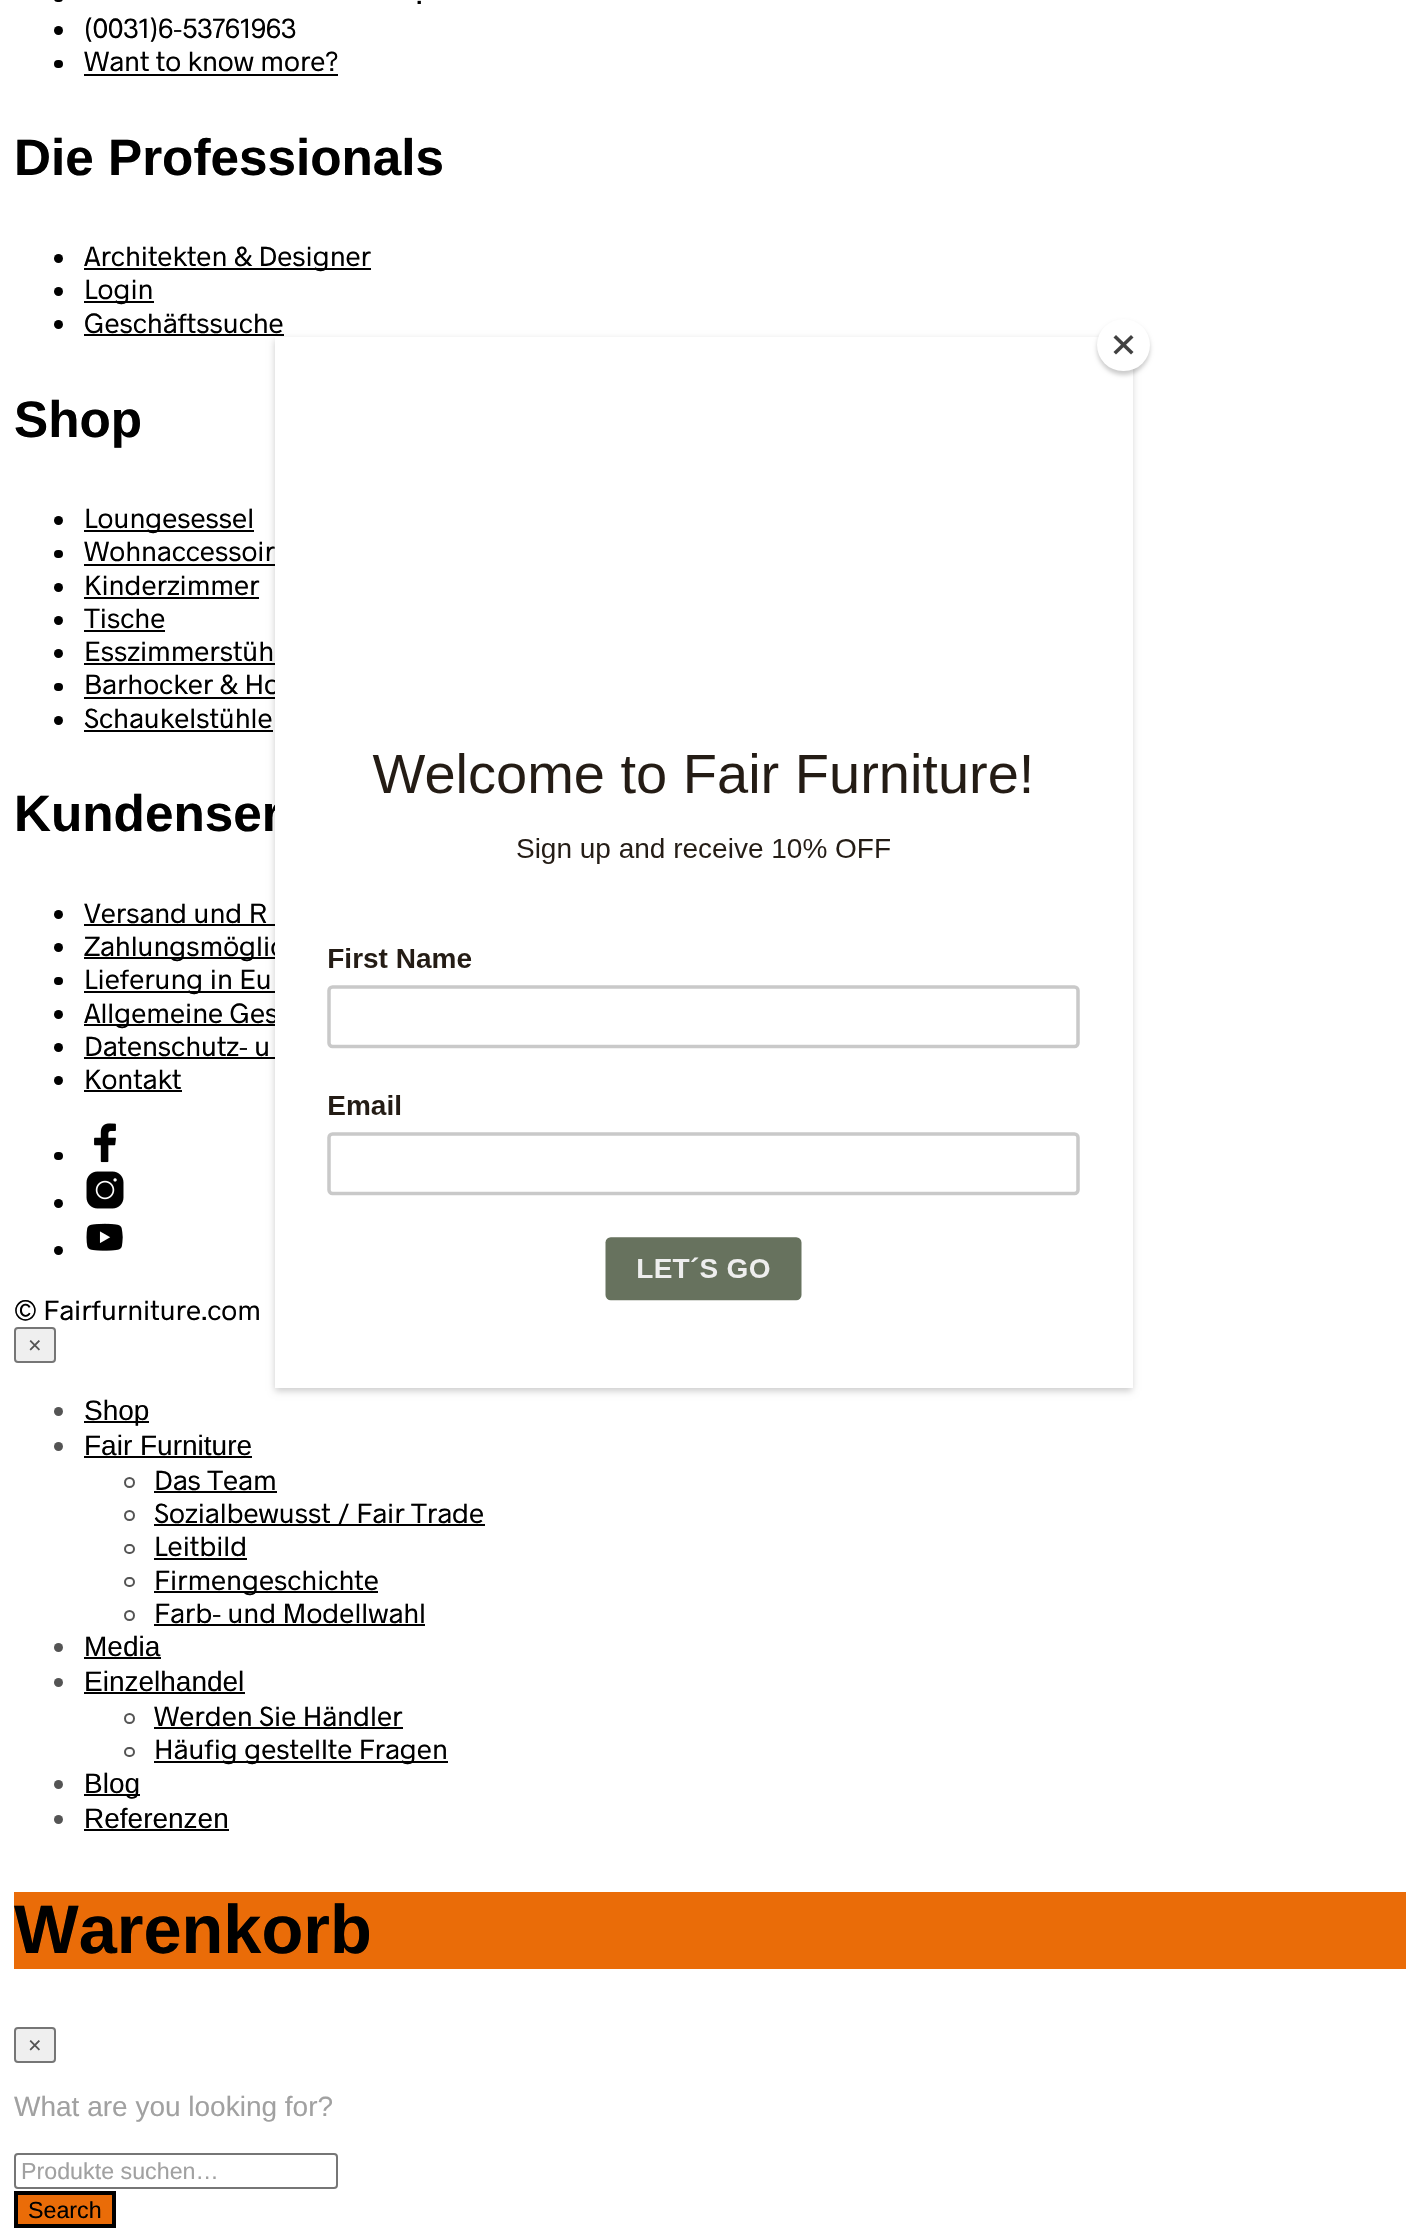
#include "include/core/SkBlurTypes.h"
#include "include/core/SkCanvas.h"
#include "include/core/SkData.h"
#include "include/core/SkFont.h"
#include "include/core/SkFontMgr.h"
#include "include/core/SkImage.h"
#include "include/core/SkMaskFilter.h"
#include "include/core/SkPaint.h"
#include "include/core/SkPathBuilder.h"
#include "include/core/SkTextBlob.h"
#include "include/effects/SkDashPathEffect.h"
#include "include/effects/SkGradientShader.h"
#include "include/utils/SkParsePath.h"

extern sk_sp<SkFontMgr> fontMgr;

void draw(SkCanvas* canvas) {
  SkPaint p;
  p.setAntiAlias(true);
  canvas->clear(SK_ColorWHITE);
  p.setColor(SK_ColorBLACK);
  canvas->drawRoundRect(SkRect::MakeLTRB(54, -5, 63, 2), 4.5f, 4.5f, p);
  canvas->drawCircle(58.5f, 30.5f, 4.5f, p);
  canvas->drawRoundRect(SkRect::MakeLTRB(54, 60, 63, 68), 4, 4, p);
  canvas->drawRect(SkRect::MakeLTRB(84, 74, 338, 76), p);
  canvas->drawCircle(58.5f, 258.5f, 4.5f, p);
  canvas->drawRect(SkRect::MakeLTRB(84, 268, 371, 270), p);
  canvas->drawCircle(58.5f, 291.5f, 4.5f, p);
  canvas->drawRect(SkRect::MakeLTRB(84, 301, 154, 303), p);
  canvas->drawCircle(58.5f, 324.5f, 4.5f, p);
  canvas->drawRect(SkRect::MakeLTRB(84, 334, 284, 336), p);
  canvas->drawCircle(58.5f, 520.5f, 4.5f, p);
  canvas->drawRect(SkRect::MakeLTRB(84, 530, 254, 532), p);
  canvas->drawRoundRect(SkRect::MakeLTRB(54, 550, 63, 558), 4, 4, p);
  canvas->drawRect(SkRect::MakeLTRB(84, 564, 275, 566), p);
  canvas->drawCircle(58.5f, 587.5f, 4.5f, p);
  canvas->drawRect(SkRect::MakeLTRB(84, 597, 259, 599), p);
  canvas->drawCircle(58.5f, 620.5f, 4.5f, p);
  canvas->drawRect(SkRect::MakeLTRB(84, 630, 165, 632), p);
  canvas->drawCircle(58.5f, 653.5f, 4.5f, p);
  canvas->drawRect(SkRect::MakeLTRB(84, 663, 275, 665), p);
  canvas->drawRoundRect(SkRect::MakeLTRB(54, 683, 63, 691), 4, 4, p);
  canvas->drawRect(SkRect::MakeLTRB(84, 697, 275, 699), p);
  canvas->drawCircle(58.5f, 720.5f, 4.5f, p);
  canvas->drawRect(SkRect::MakeLTRB(84, 730, 273, 732), p);
  canvas->drawCircle(58.5f, 914.5f, 4.5f, p);
  canvas->drawRect(SkRect::MakeLTRB(84, 924, 275, 926), p);
  canvas->drawCircle(58.5f, 947.5f, 4.5f, p);
  canvas->drawRect(SkRect::MakeLTRB(84, 957, 275, 959), p);
  canvas->drawRoundRect(SkRect::MakeLTRB(54, 977, 63, 985), 4, 4, p);
  canvas->drawRect(SkRect::MakeLTRB(84, 991, 275, 993), p);
  canvas->drawCircle(58.5f, 1014.5f, 4.5f, p);
  canvas->drawRect(SkRect::MakeLTRB(84, 1024, 275, 1026), p);
  canvas->drawCircle(58.5f, 1047.5f, 4.5f, p);
  canvas->drawRect(SkRect::MakeLTRB(84, 1057, 275, 1059), p);
  canvas->drawCircle(58.5f, 1080.5f, 4.5f, p);
  canvas->drawRect(SkRect::MakeLTRB(84, 1090, 182, 1092), p);
  canvas->drawRoundRect(SkRect::MakeLTRB(54, 1152, 63, 1160), 4, 4, p);
  canvas->drawImageRect(SkImages::DeferredFromEncodedData(SkData::MakeFromFileName("images/1.png")), SkRect::MakeLTRB(94, 1123, 116, 1163), SkSamplingOptions());
  canvas->drawCircle(58.5f, 1203.5f, 4.5f, p);
  canvas->drawImageRect(SkImages::DeferredFromEncodedData(SkData::MakeFromFileName("images/2.png")), SkRect::MakeLTRB(86, 1171, 124, 1209), SkSamplingOptions());
  canvas->drawCircle(58.5f, 1250.5f, 4.5f, p);
  canvas->drawImageRect(SkImages::DeferredFromEncodedData(SkData::MakeFromFileName("images/3.png")), SkRect::MakeLTRB(86, 1223, 123, 1251), SkSamplingOptions());
  p.setColor(SkColorSetRGB(239, 239, 239));
  canvas->drawRoundRect(SkRect::MakeLTRB(15, 1328, 55, 1362), 3, 3, p);
  p.setStyle(SkPaint::kStroke_Style);
  p.setStrokeWidth(2);
  p.setColor(SkColorSetRGB(118, 118, 118));
  canvas->drawRoundRect(SkRect::MakeLTRB(15, 1328, 55, 1362), 3, 3, p);
  p.setStyle(SkPaint::kFill_Style);
  p.setColor(SkColorSetRGB(84, 84, 84));
  canvas->drawCircle(58.5f, 1411.5f, 4.5f, p);
  p.setColor(SK_ColorBLACK);
  canvas->drawRect(SkRect::MakeLTRB(84, 1421, 149, 1423), p);
  p.setColor(SkColorSetRGB(84, 84, 84));
  canvas->drawCircle(58.5f, 1446.5f, 4.5f, p);
  p.setColor(SK_ColorBLACK);
  canvas->drawRect(SkRect::MakeLTRB(84, 1456, 252, 1458), p);
  p.setStyle(SkPaint::kStroke_Style);
  p.setColor(SkColorSetRGB(84, 84, 84));
  canvas->drawCircle(129.5f, 1482.5f, 4.5f, p);
  p.setStyle(SkPaint::kFill_Style);
  p.setColor(SK_ColorBLACK);
  canvas->drawRect(SkRect::MakeLTRB(154, 1491, 277, 1493), p);
  p.setStyle(SkPaint::kStroke_Style);
  p.setColor(SkColorSetRGB(84, 84, 84));
  canvas->drawCircle(129.5f, 1515.5f, 4.5f, p);
  p.setStyle(SkPaint::kFill_Style);
  p.setColor(SK_ColorBLACK);
  canvas->drawRect(SkRect::MakeLTRB(154, 1524, 485, 1526), p);
  p.setStyle(SkPaint::kStroke_Style);
  p.setColor(SkColorSetRGB(84, 84, 84));
  canvas->drawRoundRect(SkRect::MakeLTRB(125, 1545, 134, 1553), 4, 4, p);
  p.setStyle(SkPaint::kFill_Style);
  p.setColor(SK_ColorBLACK);
  canvas->drawRect(SkRect::MakeLTRB(154, 1558, 247, 1560), p);
  p.setStyle(SkPaint::kStroke_Style);
  p.setColor(SkColorSetRGB(84, 84, 84));
  canvas->drawRoundRect(SkRect::MakeLTRB(125, 1578, 134, 1586), 4, 4, p);
  p.setStyle(SkPaint::kFill_Style);
  p.setColor(SK_ColorBLACK);
  canvas->drawRect(SkRect::MakeLTRB(154, 1591, 378, 1593), p);
  p.setStyle(SkPaint::kStroke_Style);
  p.setColor(SkColorSetRGB(84, 84, 84));
  canvas->drawCircle(129.5f, 1615.5f, 4.5f, p);
  p.setStyle(SkPaint::kFill_Style);
  p.setColor(SK_ColorBLACK);
  canvas->drawRect(SkRect::MakeLTRB(154, 1624, 425, 1626), p);
  p.setColor(SkColorSetRGB(84, 84, 84));
  canvas->drawCircle(58.5f, 1647.5f, 4.5f, p);
  p.setColor(SK_ColorBLACK);
  canvas->drawRect(SkRect::MakeLTRB(84, 1657, 161, 1659), p);
  p.setColor(SkColorSetRGB(84, 84, 84));
  canvas->drawCircle(58.5f, 1682.5f, 4.5f, p);
  p.setColor(SK_ColorBLACK);
  canvas->drawRect(SkRect::MakeLTRB(84, 1692, 245, 1694), p);
  p.setStyle(SkPaint::kStroke_Style);
  p.setColor(SkColorSetRGB(84, 84, 84));
  canvas->drawCircle(129.5f, 1718.5f, 4.5f, p);
  p.setStyle(SkPaint::kFill_Style);
  p.setColor(SK_ColorBLACK);
  canvas->drawRect(SkRect::MakeLTRB(154, 1727, 403, 1729), p);
  p.setStyle(SkPaint::kStroke_Style);
  p.setColor(SkColorSetRGB(84, 84, 84));
  canvas->drawRoundRect(SkRect::MakeLTRB(125, 1748, 134, 1756), 4, 4, p);
  p.setStyle(SkPaint::kFill_Style);
  p.setColor(SK_ColorBLACK);
  canvas->drawRect(SkRect::MakeLTRB(154, 1761, 448, 1763), p);
  p.setColor(SkColorSetRGB(84, 84, 84));
  canvas->drawCircle(58.5f, 1784.5f, 4.5f, p);
  p.setColor(SK_ColorBLACK);
  canvas->drawRect(SkRect::MakeLTRB(84, 1794, 140, 1796), p);
  p.setColor(SkColorSetRGB(84, 84, 84));
  canvas->drawCircle(58.5f, 1819.5f, 4.5f, p);
  p.setColor(SK_ColorBLACK);
  canvas->drawRect(SkRect::MakeLTRB(84, 1829, 229, 1831), p);
  p.setColor(SkColorSetRGB(234, 108, 8));
  canvas->drawRect(SkRect::MakeLTRB(14, 1892, 1406, 1969), p);
  p.setColor(SkColorSetRGB(239, 239, 239));
  canvas->drawRoundRect(SkRect::MakeLTRB(15, 2028, 55, 2062), 3, 3, p);
  p.setStyle(SkPaint::kStroke_Style);
  p.setColor(SkColorSetRGB(118, 118, 118));
  canvas->drawRoundRect(SkRect::MakeLTRB(15, 2028, 55, 2062), 3, 3, p);
  canvas->drawRoundRect(SkRect::MakeLTRB(15, 2154, 337, 2188), 3, 3, p);
  p.setStyle(SkPaint::kFill_Style);
  p.setColor(SkColorSetRGB(234, 108, 8));
  canvas->drawRect(SkRect::MakeLTRB(16, 2193, 114, 2226), p);
  p.setStyle(SkPaint::kStroke_Style);
  p.setStrokeWidth(4);
  p.setColor(SK_ColorBLACK);
  canvas->drawRect(SkRect::MakeLTRB(16, 2193, 114, 2226), p);
  p.setStyle(SkPaint::kFill_Style);
  p.setColor(SkColorSetARGB(51, 0, 0, 0));
  p.setMaskFilter(SkMaskFilter::MakeBlur(kNormal_SkBlurStyle, 3.5f));
  canvas->drawRect(SkRect::MakeLTRB(275, 340, 1132, 1391), p);
  p.setMaskFilter(nullptr);
  SkFont font1(fontMgr->matchFamilyStyle("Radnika", SkFontStyle::Normal()), 28);
  font1.setSubpixel(true);
  p.setColor(SK_ColorBLACK);
  canvas->drawString(".", 416, 4, font1, p);
  canvas->drawString("(0031)6-53761963", 84, 38, font1, p);
  canvas->drawString("Want to know more?", 84, 71, font1, p);
  SkFont font2(fontMgr->matchFamilyStyle("Liberation Sans", SkFontStyle::Bold()), 51.25f);
  font2.setSubpixel(true);
  canvas->drawString("Die Professionals", 14, 175, font2, p);
  canvas->drawString("Architekten & Designer", 84, 266, font1, p);
  canvas->drawString("Login", 84, 299, font1, p);
  canvas->drawString("Geschäftssuche", 84, 333, font1, p);
  canvas->drawString("Shop", 14, 437, font2, p);
  canvas->drawString("Loungesessel", 84, 528, font1, p);
  canvas->drawString("Wohnaccessoir", 84, 561, font1, p);
  canvas->drawString("Kinderzimmer", 84, 595, font1, p);
  canvas->drawString("Tische", 84, 628, font1, p);
  canvas->drawString("Esszimmerstüh", 84, 661, font1, p);
  canvas->drawString("Barhocker & Ho", 84, 694, font1, p);
  canvas->drawString("Schaukelstühle", 84, 728, font1, p);
  canvas->drawString("Kundenser", 14, 831, font2, p);
  canvas->drawString("Versand und R", 84, 923, font1, p);
  canvas->drawString("Zahlungsmöglic", 84, 956, font1, p);
  canvas->drawString("Lieferung in Eu", 84, 989, font1, p);
  canvas->drawString("Allgemeine Ges", 84, 1023, font1, p);
  canvas->drawString("Datenschutz- u", 84, 1056, font1, p);
  canvas->drawString("Kontakt", 84, 1089, font1, p);
  canvas->drawString("© Fairfurniture.com", 14, 1320, font1, p);
  SkFont font3(fontMgr->matchFamilyStyle("Liberation Sans", SkFontStyle::Normal()), 23.25f);
  font3.setSubpixel(true);
  p.setColor(SkColorSetRGB(84, 84, 84));
  canvas->drawString("×", 28, 1353, font3, p);
  SkFont font4(fontMgr->matchFamilyStyle("Liberation Sans", SkFontStyle::Normal()), 28);
  font4.setSubpixel(true);
  p.setColor(SK_ColorBLACK);
  canvas->drawString("Shop", 84, 1420, font4, p);
  canvas->drawString("Fair Furniture", 84, 1455, font4, p);
  canvas->drawString("Das Team", 154, 1490, font1, p);
  canvas->drawString("Sozialbewusst / Fair Trade", 154, 1523, font1, p);
  canvas->drawString("Leitbild", 154, 1556, font1, p);
  canvas->drawString("Firmengeschichte", 154, 1590, font1, p);
  canvas->drawString("Farb- und Modellwahl", 154, 1623, font1, p);
  canvas->drawString("Media", 84, 1656, font4, p);
  canvas->drawString("Einzelhandel", 84, 1691, font4, p);
  canvas->drawString("Werden Sie Händler", 154, 1726, font1, p);
  canvas->drawString("Häufig gestellte Fragen", 154, 1759, font1, p);
  canvas->drawString("Blog", 84, 1793, font4, p);
  canvas->drawString("Referenzen", 84, 1828, font4, p);
  SkFont font5(fontMgr->matchFamilyStyle("Liberation Sans", SkFontStyle::Bold()), 68.5f);
  font5.setSubpixel(true);
  canvas->drawString("Warenkorb", 14, 1953, font5, p);
  p.setColor(SkColorSetRGB(84, 84, 84));
  canvas->drawString("×", 28, 2053, font3, p);
  p.setColor(SkColorSetRGB(161, 161, 161));
  canvas->drawString("What are you looking for?", 14, 2116, font4, p);
  canvas->drawString("Produkte suchen…", 21, 2179, font3, p);
  p.setColor(SK_ColorBLACK);
  canvas->drawString("Search", 28, 2218, font3, p);
  canvas->drawImageRect(SkImages::DeferredFromEncodedData(SkData::MakeFromFileName("images/4.png")), SkRect::MakeLTRB(275, 337, 1133, 1388), SkSamplingOptions());
  p.setColor(SkColorSetARGB(51, 0, 0, 0));
  p.setMaskFilter(SkMaskFilter::MakeBlur(kNormal_SkBlurStyle, 2));
  canvas->drawRoundRect(SkRect::MakeLTRB(1097, 322, 1150, 375), 26.5f, 26.5f, p);
  p.setMaskFilter(nullptr);
  p.setColor(SK_ColorWHITE);
  canvas->drawRoundRect(SkRect::MakeLTRB(1097, 319, 1150, 371), 26, 26, p);
  p.setColor(SkColorSetRGB(65, 65, 65));
  canvas->drawPath(SkPathBuilder().moveTo(1131, 335).lineTo(1133.5f, 337.5f).lineTo(1116, 354.5f).lineTo(1113.5f, 352).close().detach(), p);
  canvas->drawPath(SkPathBuilder().moveTo(1113.5f, 337.5f).lineTo(1116, 335).lineTo(1133.5f, 352).lineTo(1131, 354.5f).close().detach(), p);
}
